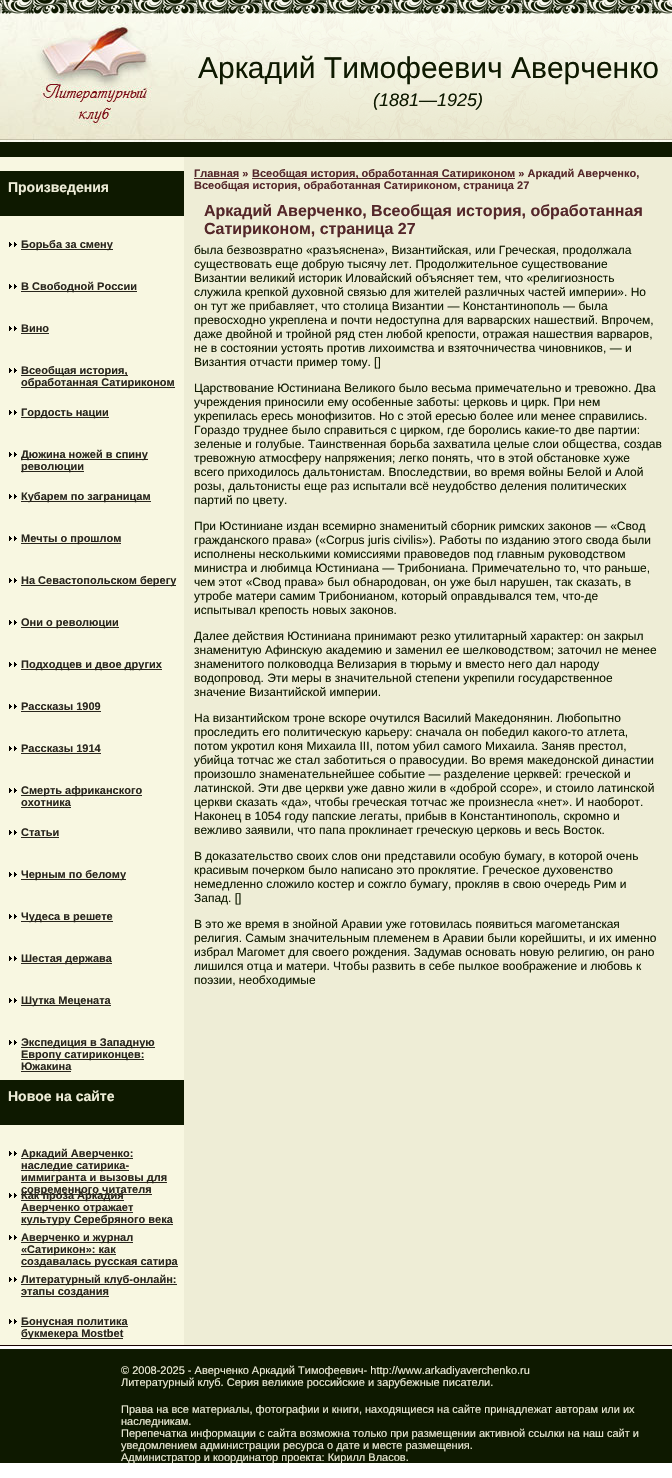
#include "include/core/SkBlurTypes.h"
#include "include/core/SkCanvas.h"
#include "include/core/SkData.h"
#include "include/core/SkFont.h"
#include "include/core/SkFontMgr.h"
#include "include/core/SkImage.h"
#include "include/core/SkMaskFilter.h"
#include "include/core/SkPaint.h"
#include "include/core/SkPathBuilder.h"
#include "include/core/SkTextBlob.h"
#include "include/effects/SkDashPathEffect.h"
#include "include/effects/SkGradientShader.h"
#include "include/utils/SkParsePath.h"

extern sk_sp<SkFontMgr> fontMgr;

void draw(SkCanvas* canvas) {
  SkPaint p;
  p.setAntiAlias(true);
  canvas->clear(SK_ColorWHITE);
  canvas->drawImageRect(SkImages::DeferredFromEncodedData(SkData::MakeFromFileName("images/1.png")), SkRect::MakeLTRB(0, 0, 672, 14), SkSamplingOptions());
  canvas->drawImageRect(SkImages::DeferredFromEncodedData(SkData::MakeFromFileName("images/2.png")), SkRect::MakeLTRB(0, 140, 184, 142), SkSamplingOptions());
  canvas->drawImageRect(SkImages::DeferredFromEncodedData(SkData::MakeFromFileName("images/3.png")), SkRect::MakeLTRB(0, 14, 184, 140), SkSamplingOptions());
  canvas->drawImageRect(SkImages::DeferredFromEncodedData(SkData::MakeFromFileName("images/4.png")), SkRect::MakeLTRB(184, 14, 672, 142), SkSamplingOptions());
  p.setColor(SkColorSetRGB(14, 25, 0));
  canvas->drawRect(SkRect::MakeLTRB(0, 142, 672, 157), p);
  p.setColor(SkColorSetRGB(248, 247, 225));
  canvas->drawRect(SkRect::MakeLTRB(0, 157, 184, 1345), p);
  p.setColor(SkColorSetRGB(14, 25, 0));
  canvas->drawRect(SkRect::MakeLTRB(0, 171, 184, 216), p);
  canvas->drawImageRect(SkImages::DeferredFromEncodedData(SkData::MakeFromFileName("images/5.png")), SkRect::MakeLTRB(9, 242, 17, 247), SkSamplingOptions());
  p.setColor(SkColorSetRGB(41, 38, 29));
  canvas->drawRect(SkRect::MakeLTRB(21, 249, 113, 250), p);
  canvas->drawImageRect(SkImages::DeferredFromEncodedData(SkData::MakeFromFileName("images/5.png")), SkRect::MakeLTRB(9, 284, 17, 289), SkSamplingOptions());
  canvas->drawRect(SkRect::MakeLTRB(21, 291, 137, 292), p);
  canvas->drawImageRect(SkImages::DeferredFromEncodedData(SkData::MakeFromFileName("images/5.png")), SkRect::MakeLTRB(9, 326, 17, 331), SkSamplingOptions());
  canvas->drawRect(SkRect::MakeLTRB(21, 333, 49, 334), p);
  canvas->drawImageRect(SkImages::DeferredFromEncodedData(SkData::MakeFromFileName("images/5.png")), SkRect::MakeLTRB(9, 368, 17, 373), SkSamplingOptions());
  canvas->drawRect(SkRect::MakeLTRB(21, 375, 128, 376), p);
  canvas->drawRect(SkRect::MakeLTRB(21, 387, 175, 388), p);
  canvas->drawImageRect(SkImages::DeferredFromEncodedData(SkData::MakeFromFileName("images/5.png")), SkRect::MakeLTRB(9, 410, 17, 415), SkSamplingOptions());
  canvas->drawRect(SkRect::MakeLTRB(21, 417, 109, 418), p);
  canvas->drawImageRect(SkImages::DeferredFromEncodedData(SkData::MakeFromFileName("images/5.png")), SkRect::MakeLTRB(9, 452, 17, 457), SkSamplingOptions());
  canvas->drawRect(SkRect::MakeLTRB(21, 459, 148, 460), p);
  canvas->drawRect(SkRect::MakeLTRB(21, 471, 84, 472), p);
  canvas->drawImageRect(SkImages::DeferredFromEncodedData(SkData::MakeFromFileName("images/5.png")), SkRect::MakeLTRB(9, 494, 17, 499), SkSamplingOptions());
  canvas->drawRect(SkRect::MakeLTRB(21, 501, 151, 502), p);
  canvas->drawImageRect(SkImages::DeferredFromEncodedData(SkData::MakeFromFileName("images/5.png")), SkRect::MakeLTRB(9, 536, 17, 541), SkSamplingOptions());
  canvas->drawRect(SkRect::MakeLTRB(21, 543, 121, 544), p);
  canvas->drawImageRect(SkImages::DeferredFromEncodedData(SkData::MakeFromFileName("images/5.png")), SkRect::MakeLTRB(9, 578, 17, 583), SkSamplingOptions());
  canvas->drawRect(SkRect::MakeLTRB(21, 585, 176, 586), p);
  canvas->drawImageRect(SkImages::DeferredFromEncodedData(SkData::MakeFromFileName("images/5.png")), SkRect::MakeLTRB(9, 620, 17, 625), SkSamplingOptions());
  canvas->drawRect(SkRect::MakeLTRB(21, 627, 119, 628), p);
  canvas->drawImageRect(SkImages::DeferredFromEncodedData(SkData::MakeFromFileName("images/5.png")), SkRect::MakeLTRB(9, 662, 17, 667), SkSamplingOptions());
  canvas->drawRect(SkRect::MakeLTRB(21, 669, 162, 670), p);
  canvas->drawImageRect(SkImages::DeferredFromEncodedData(SkData::MakeFromFileName("images/5.png")), SkRect::MakeLTRB(9, 704, 17, 709), SkSamplingOptions());
  canvas->drawRect(SkRect::MakeLTRB(21, 711, 101, 712), p);
  canvas->drawImageRect(SkImages::DeferredFromEncodedData(SkData::MakeFromFileName("images/5.png")), SkRect::MakeLTRB(9, 746, 17, 751), SkSamplingOptions());
  canvas->drawRect(SkRect::MakeLTRB(21, 753, 101, 754), p);
  canvas->drawImageRect(SkImages::DeferredFromEncodedData(SkData::MakeFromFileName("images/5.png")), SkRect::MakeLTRB(9, 788, 17, 793), SkSamplingOptions());
  canvas->drawRect(SkRect::MakeLTRB(21, 795, 142, 796), p);
  canvas->drawRect(SkRect::MakeLTRB(21, 807, 71, 808), p);
  canvas->drawImageRect(SkImages::DeferredFromEncodedData(SkData::MakeFromFileName("images/5.png")), SkRect::MakeLTRB(9, 830, 17, 835), SkSamplingOptions());
  canvas->drawRect(SkRect::MakeLTRB(21, 837, 59, 838), p);
  canvas->drawImageRect(SkImages::DeferredFromEncodedData(SkData::MakeFromFileName("images/5.png")), SkRect::MakeLTRB(9, 872, 17, 877), SkSamplingOptions());
  canvas->drawRect(SkRect::MakeLTRB(21, 879, 126, 880), p);
  canvas->drawImageRect(SkImages::DeferredFromEncodedData(SkData::MakeFromFileName("images/5.png")), SkRect::MakeLTRB(9, 914, 17, 919), SkSamplingOptions());
  canvas->drawRect(SkRect::MakeLTRB(21, 921, 113, 922), p);
  canvas->drawImageRect(SkImages::DeferredFromEncodedData(SkData::MakeFromFileName("images/5.png")), SkRect::MakeLTRB(9, 956, 17, 961), SkSamplingOptions());
  canvas->drawRect(SkRect::MakeLTRB(21, 963, 112, 964), p);
  canvas->drawImageRect(SkImages::DeferredFromEncodedData(SkData::MakeFromFileName("images/5.png")), SkRect::MakeLTRB(9, 998, 17, 1003), SkSamplingOptions());
  canvas->drawRect(SkRect::MakeLTRB(21, 1005, 111, 1006), p);
  canvas->drawImageRect(SkImages::DeferredFromEncodedData(SkData::MakeFromFileName("images/5.png")), SkRect::MakeLTRB(9, 1040, 17, 1045), SkSamplingOptions());
  canvas->drawRect(SkRect::MakeLTRB(21, 1047, 155, 1048), p);
  canvas->drawRect(SkRect::MakeLTRB(21, 1059, 144, 1060), p);
  canvas->drawRect(SkRect::MakeLTRB(21, 1071, 71, 1072), p);
  p.setColor(SkColorSetRGB(14, 25, 0));
  canvas->drawRect(SkRect::MakeLTRB(0, 1080, 184, 1125), p);
  canvas->drawImageRect(SkImages::DeferredFromEncodedData(SkData::MakeFromFileName("images/5.png")), SkRect::MakeLTRB(9, 1151, 17, 1156), SkSamplingOptions());
  p.setColor(SkColorSetRGB(41, 38, 29));
  canvas->drawRect(SkRect::MakeLTRB(21, 1158, 133, 1159), p);
  canvas->drawRect(SkRect::MakeLTRB(21, 1170, 129, 1171), p);
  canvas->drawRect(SkRect::MakeLTRB(21, 1182, 167, 1183), p);
  canvas->drawRect(SkRect::MakeLTRB(21, 1194, 152, 1195), p);
  canvas->drawImageRect(SkImages::DeferredFromEncodedData(SkData::MakeFromFileName("images/5.png")), SkRect::MakeLTRB(9, 1193, 17, 1198), SkSamplingOptions());
  canvas->drawRect(SkRect::MakeLTRB(21, 1200, 124, 1201), p);
  canvas->drawRect(SkRect::MakeLTRB(21, 1212, 133, 1213), p);
  canvas->drawRect(SkRect::MakeLTRB(21, 1224, 173, 1225), p);
  canvas->drawImageRect(SkImages::DeferredFromEncodedData(SkData::MakeFromFileName("images/5.png")), SkRect::MakeLTRB(9, 1235, 17, 1240), SkSamplingOptions());
  canvas->drawRect(SkRect::MakeLTRB(21, 1242, 133, 1243), p);
  canvas->drawRect(SkRect::MakeLTRB(21, 1254, 116, 1255), p);
  canvas->drawRect(SkRect::MakeLTRB(21, 1266, 178, 1267), p);
  canvas->drawImageRect(SkImages::DeferredFromEncodedData(SkData::MakeFromFileName("images/5.png")), SkRect::MakeLTRB(9, 1277, 17, 1282), SkSamplingOptions());
  canvas->drawRect(SkRect::MakeLTRB(21, 1284, 177, 1285), p);
  canvas->drawRect(SkRect::MakeLTRB(21, 1296, 109, 1297), p);
  canvas->drawImageRect(SkImages::DeferredFromEncodedData(SkData::MakeFromFileName("images/5.png")), SkRect::MakeLTRB(9, 1319, 17, 1324), SkSamplingOptions());
  canvas->drawRect(SkRect::MakeLTRB(21, 1326, 128, 1327), p);
  canvas->drawRect(SkRect::MakeLTRB(21, 1338, 123, 1339), p);
  p.setColor(SkColorSetRGB(238, 237, 214));
  canvas->drawRect(SkRect::MakeLTRB(184, 157, 672, 1345), p);
  p.setColor(SkColorSetRGB(84, 39, 42));
  canvas->drawRect(SkRect::MakeLTRB(194, 178, 239, 179), p);
  canvas->drawRect(SkRect::MakeLTRB(252, 178, 515, 179), p);
  p.setColor(SkColorSetRGB(27, 3, 4));
  canvas->drawRect(SkRect::MakeLTRB(0, 1345, 672, 1346), p);
  p.setColor(SkColorSetRGB(14, 25, 0));
  canvas->drawRect(SkRect::MakeLTRB(0, 1349, 672, 1463), p);
  SkFont font1(fontMgr->matchFamilyStyle("Liberation Sans", SkFontStyle::Normal()), 30);
  font1.setSubpixel(true);
  canvas->drawString("Аркадий Тимофеевич Аверченко", 198, 78, font1, p);
  SkFont font2(fontMgr->matchFamilyStyle("Liberation Sans", SkFontStyle::Italic()), 18);
  font2.setSubpixel(true);
  canvas->drawString("(1881—1925)", 373, 106, font2, p);
  SkFont font3(fontMgr->matchFamilyStyle("Liberation Sans", SkFontStyle::Bold()), 14);
  font3.setSubpixel(true);
  p.setColor(SkColorSetRGB(238, 237, 216));
  canvas->drawString("Произведения", 8, 192, font3, p);
  SkFont font4(fontMgr->matchFamilyStyle("Liberation Sans", SkFontStyle::Bold()), 11);
  font4.setSubpixel(true);
  p.setColor(SkColorSetRGB(41, 38, 29));
  canvas->drawString("Борьба за смену", 21, 248, font4, p);
  canvas->drawString("В Свободной России", 21, 290, font4, p);
  canvas->drawString("Вино", 21, 332, font4, p);
  canvas->drawString("Всеобщая история,", 21, 374, font4, p);
  canvas->drawString("обработанная Сатириконом", 21, 386, font4, p);
  canvas->drawString("Гордость нации", 21, 416, font4, p);
  canvas->drawString("Дюжина ножей в спину", 21, 458, font4, p);
  canvas->drawString("революции", 21, 470, font4, p);
  canvas->drawString("Кубарем по заграницам", 21, 500, font4, p);
  canvas->drawString("Мечты о прошлом", 21, 542, font4, p);
  canvas->drawString("На Севастопольском берегу", 21, 584, font4, p);
  canvas->drawString("Они о революции", 21, 626, font4, p);
  canvas->drawString("Подходцев и двое других", 21, 668, font4, p);
  canvas->drawString("Рассказы 1909", 21, 710, font4, p);
  canvas->drawString("Рассказы 1914", 21, 752, font4, p);
  canvas->drawString("Смерть африканского", 21, 794, font4, p);
  canvas->drawString("охотника", 21, 806, font4, p);
  canvas->drawString("Статьи", 21, 836, font4, p);
  canvas->drawString("Черным по белому", 21, 878, font4, p);
  canvas->drawString("Чудеса в решете", 21, 920, font4, p);
  canvas->drawString("Шестая держава", 21, 962, font4, p);
  canvas->drawString("Шутка Mецената", 21, 1004, font4, p);
  canvas->drawString("Экспедиция в Западную", 21, 1046, font4, p);
  canvas->drawString("Европу сатириконцев:", 21, 1058, font4, p);
  canvas->drawString("Южакина", 21, 1070, font4, p);
  p.setColor(SkColorSetRGB(238, 237, 216));
  canvas->drawString("Новое на сайте", 8, 1101, font3, p);
  p.setColor(SkColorSetRGB(41, 38, 29));
  canvas->drawString("Аркадий Аверченко:", 21, 1157, font4, p);
  canvas->drawString("наследие сатирика-", 21, 1169, font4, p);
  canvas->drawString("иммигранта и вызовы для", 21, 1181, font4, p);
  canvas->drawString("современного читателя", 21, 1193, font4, p);
  canvas->drawString("Как проза Аркадия", 21, 1199, font4, p);
  canvas->drawString("Аверченко отражает", 21, 1211, font4, p);
  canvas->drawString("культуру Серебряного века", 21, 1223, font4, p);
  canvas->drawString("Аверченко и журнал", 21, 1241, font4, p);
  canvas->drawString("«Сатирикон»: как", 21, 1253, font4, p);
  canvas->drawString("создавалась русская сатира", 21, 1265, font4, p);
  canvas->drawString("Литературный клуб-онлайн:", 21, 1283, font4, p);
  canvas->drawString("этапы создания", 21, 1295, font4, p);
  canvas->drawString("Бонусная политика", 21, 1325, font4, p);
  canvas->drawString("букмекера Mostbet", 21, 1337, font4, p);
  p.setColor(SkColorSetRGB(84, 39, 42));
  canvas->drawString("Главная »", 194, 177, font4, p);
  canvas->drawString("Всеобщая история, обработанная Сатириконом » Аркадий Аверченко,", 252, 177, font4, p);
  canvas->drawString("Всеобщая история, обработанная Сатириконом, страница 27", 194, 189, font4, p);
  SkFont font5(fontMgr->matchFamilyStyle("Liberation Sans", SkFontStyle::Bold()), 16);
  font5.setSubpixel(true);
  canvas->drawString("Аркадий Аверченко, Всеобщая история, обработанная", 204, 216, font5, p);
  canvas->drawString("Сатириконом, страница 27", 204, 234, font5, p);
  SkFont font6(fontMgr->matchFamilyStyle("Liberation Sans", SkFontStyle::Normal()), 12);
  font6.setSubpixel(true);
  p.setColor(SkColorSetRGB(14, 25, 0));
  canvas->drawString("была безвозвратно «разъяснена», Византийская, или Греческая, продолжала", 194, 254, font6, p);
  canvas->drawString("существовать еще добрую тысячу лет. Продолжительное существование", 194, 268, font6, p);
  canvas->drawString("Византии великий историк Иловайский объясняет тем, что «религиозность", 194, 282, font6, p);
  canvas->drawString("служила крепкой духовной связью для жителей различных частей империи». Но", 194, 296, font6, p);
  canvas->drawString("он тут же прибавляет, что столица Византии — Константинополь — была", 194, 310, font6, p);
  canvas->drawString("превосходно укреплена и почти недоступна для варварских нашествий. Впрочем,", 194, 324, font6, p);
  canvas->drawString("даже двойной и тройной ряд стен любой крепости, отражая нашествия варваров,", 194, 338, font6, p);
  canvas->drawString("не в состоянии устоять против лихоимства и взяточничества чиновников, — и", 194, 352, font6, p);
  canvas->drawString("Византия отчасти пример тому. []", 194, 366, font6, p);
  canvas->drawString("Царствование Юстиниана Великого было весьма примечательно и тревожно. Два", 194, 392, font6, p);
  canvas->drawString("учреждения приносили ему особенные заботы: церковь и цирк. При нем", 194, 406, font6, p);
  canvas->drawString("укрепилась ересь монофизитов. Но с этой ересью более или менее справились.", 194, 420, font6, p);
  canvas->drawString("Гораздо труднее было справиться с цирком, где боролись какие-то две партии:", 194, 434, font6, p);
  canvas->drawString("зеленые и голубые. Таинственная борьба захватила целые слои общества, создав", 194, 448, font6, p);
  canvas->drawString("тревожную атмосферу напряжения; легко понять, что в этой обстановке хуже", 194, 462, font6, p);
  canvas->drawString("всего приходилось дальтонистам. Впоследствии, во время войны Белой и Алой", 194, 476, font6, p);
  canvas->drawString("розы, дальтонисты еще раз испытали всё неудобство деления политических", 194, 490, font6, p);
  canvas->drawString("партий по цвету.", 194, 504, font6, p);
  canvas->drawString("При Юстиниане издан всемирно знаменитый сборник римских законов — «Свод", 194, 530, font6, p);
  canvas->drawString("гражданского права» («Corpus juris civilis»). Работы по изданию этого свода были", 194, 544, font6, p);
  canvas->drawString("исполнены несколькими комиссиями правоведов под главным руководством", 194, 558, font6, p);
  canvas->drawString("министра и любимца Юстиниана — Трибониана. Примечательно то, что раньше,", 194, 572, font6, p);
  canvas->drawString("чем этот «Свод права» был обнародован, он уже был нарушен, так сказать, в", 194, 586, font6, p);
  canvas->drawString("утробе матери самим Трибонианом, который оправдывался тем, что-де", 194, 600, font6, p);
  canvas->drawString("испытывал крепость новых законов.", 194, 614, font6, p);
  canvas->drawString("Далее действия Юстиниана принимают резко утилитарный характер: он закрыл", 194, 640, font6, p);
  canvas->drawString("знаменитую Афинскую академию и заменил ее шелководством; заточил не менее", 194, 654, font6, p);
  canvas->drawString("знаменитого полководца Велизария в тюрьму и вместо него дал народу", 194, 668, font6, p);
  canvas->drawString("водопровод. Эти меры в значительной степени укрепили государственное", 194, 682, font6, p);
  canvas->drawString("значение Византийской империи.", 194, 696, font6, p);
  canvas->drawString("На византийском троне вскоре очутился Василий Македонянин. Любопытно", 194, 722, font6, p);
  canvas->drawString("проследить его политическую карьеру: сначала он победил какого-то атлета,", 194, 736, font6, p);
  canvas->drawString("потом укротил коня Михаила III, потом убил самого Михаила. Заняв престол,", 194, 750, font6, p);
  canvas->drawString("убийца тотчас же стал заботиться о правосудии. Во время македонской династии", 194, 764, font6, p);
  canvas->drawString("произошло знаменательнейшее событие — разделение церквей: греческой и", 194, 778, font6, p);
  canvas->drawString("латинской. Эти две церкви уже давно жили в «доброй ссоре», и стоило латинской", 194, 792, font6, p);
  canvas->drawString("церкви сказать «да», чтобы греческая тотчас же произнесла «нет». И наоборот.", 194, 806, font6, p);
  canvas->drawString("Наконец в 1054 году папские легаты, прибыв в Константинополь, скромно и", 194, 820, font6, p);
  canvas->drawString("вежливо заявили, что папа проклинает греческую церковь и весь Восток.", 194, 834, font6, p);
  canvas->drawString("В доказательство своих слов они представили особую бумагу, в которой очень", 194, 860, font6, p);
  canvas->drawString("красивым почерком было написано это проклятие. Греческое духовенство", 194, 874, font6, p);
  canvas->drawString("немедленно сложило костер и сожгло бумагу, прокляв в свою очередь Рим и", 194, 888, font6, p);
  canvas->drawString("Запад. []", 194, 902, font6, p);
  canvas->drawString("В это же время в знойной Аравии уже готовилась появиться магометанская", 194, 928, font6, p);
  canvas->drawString("религия. Самым значительным племенем в Аравии были корейшиты, и их именно", 194, 942, font6, p);
  canvas->drawString("избрал Магомет для своего рождения. Задумав основать новую религию, он рано", 194, 956, font6, p);
  canvas->drawString("лишился отца и матери. Чтобы развить в себе пылкое воображение и любовь к", 194, 970, font6, p);
  canvas->drawString("поэзии, необходимые", 194, 984, font6, p);
  SkFont font7(fontMgr->matchFamilyStyle("Liberation Sans", SkFontStyle::Normal()), 11);
  font7.setSubpixel(true);
  p.setColor(SkColorSetRGB(238, 237, 216));
  canvas->drawString("© 2008-2025 - Аверченко Аркадий Тимофеевич- http://www.arkadiyaverchenko.ru", 121, 1374, font7, p);
  canvas->drawString("Литературный клуб. Серия великие российские и зарубежные писатели.", 121, 1386, font7, p);
  canvas->drawString("Права на все материалы, фотографии и книги, находящиеся на сайте принадлежат авторам или их", 121, 1413, font7, p);
  canvas->drawString("наследникам.", 121, 1425, font7, p);
  canvas->drawString("Перепечатка информации с сайта возможна только при размещении активной ссылки на наш сайт и", 121, 1437, font7, p);
  canvas->drawString("уведомлением администрации ресурса о дате и месте размещения.", 121, 1449, font7, p);
  canvas->drawString("Администратор и координатор проекта: Кирилл Власов.", 121, 1461, font7, p);
}
